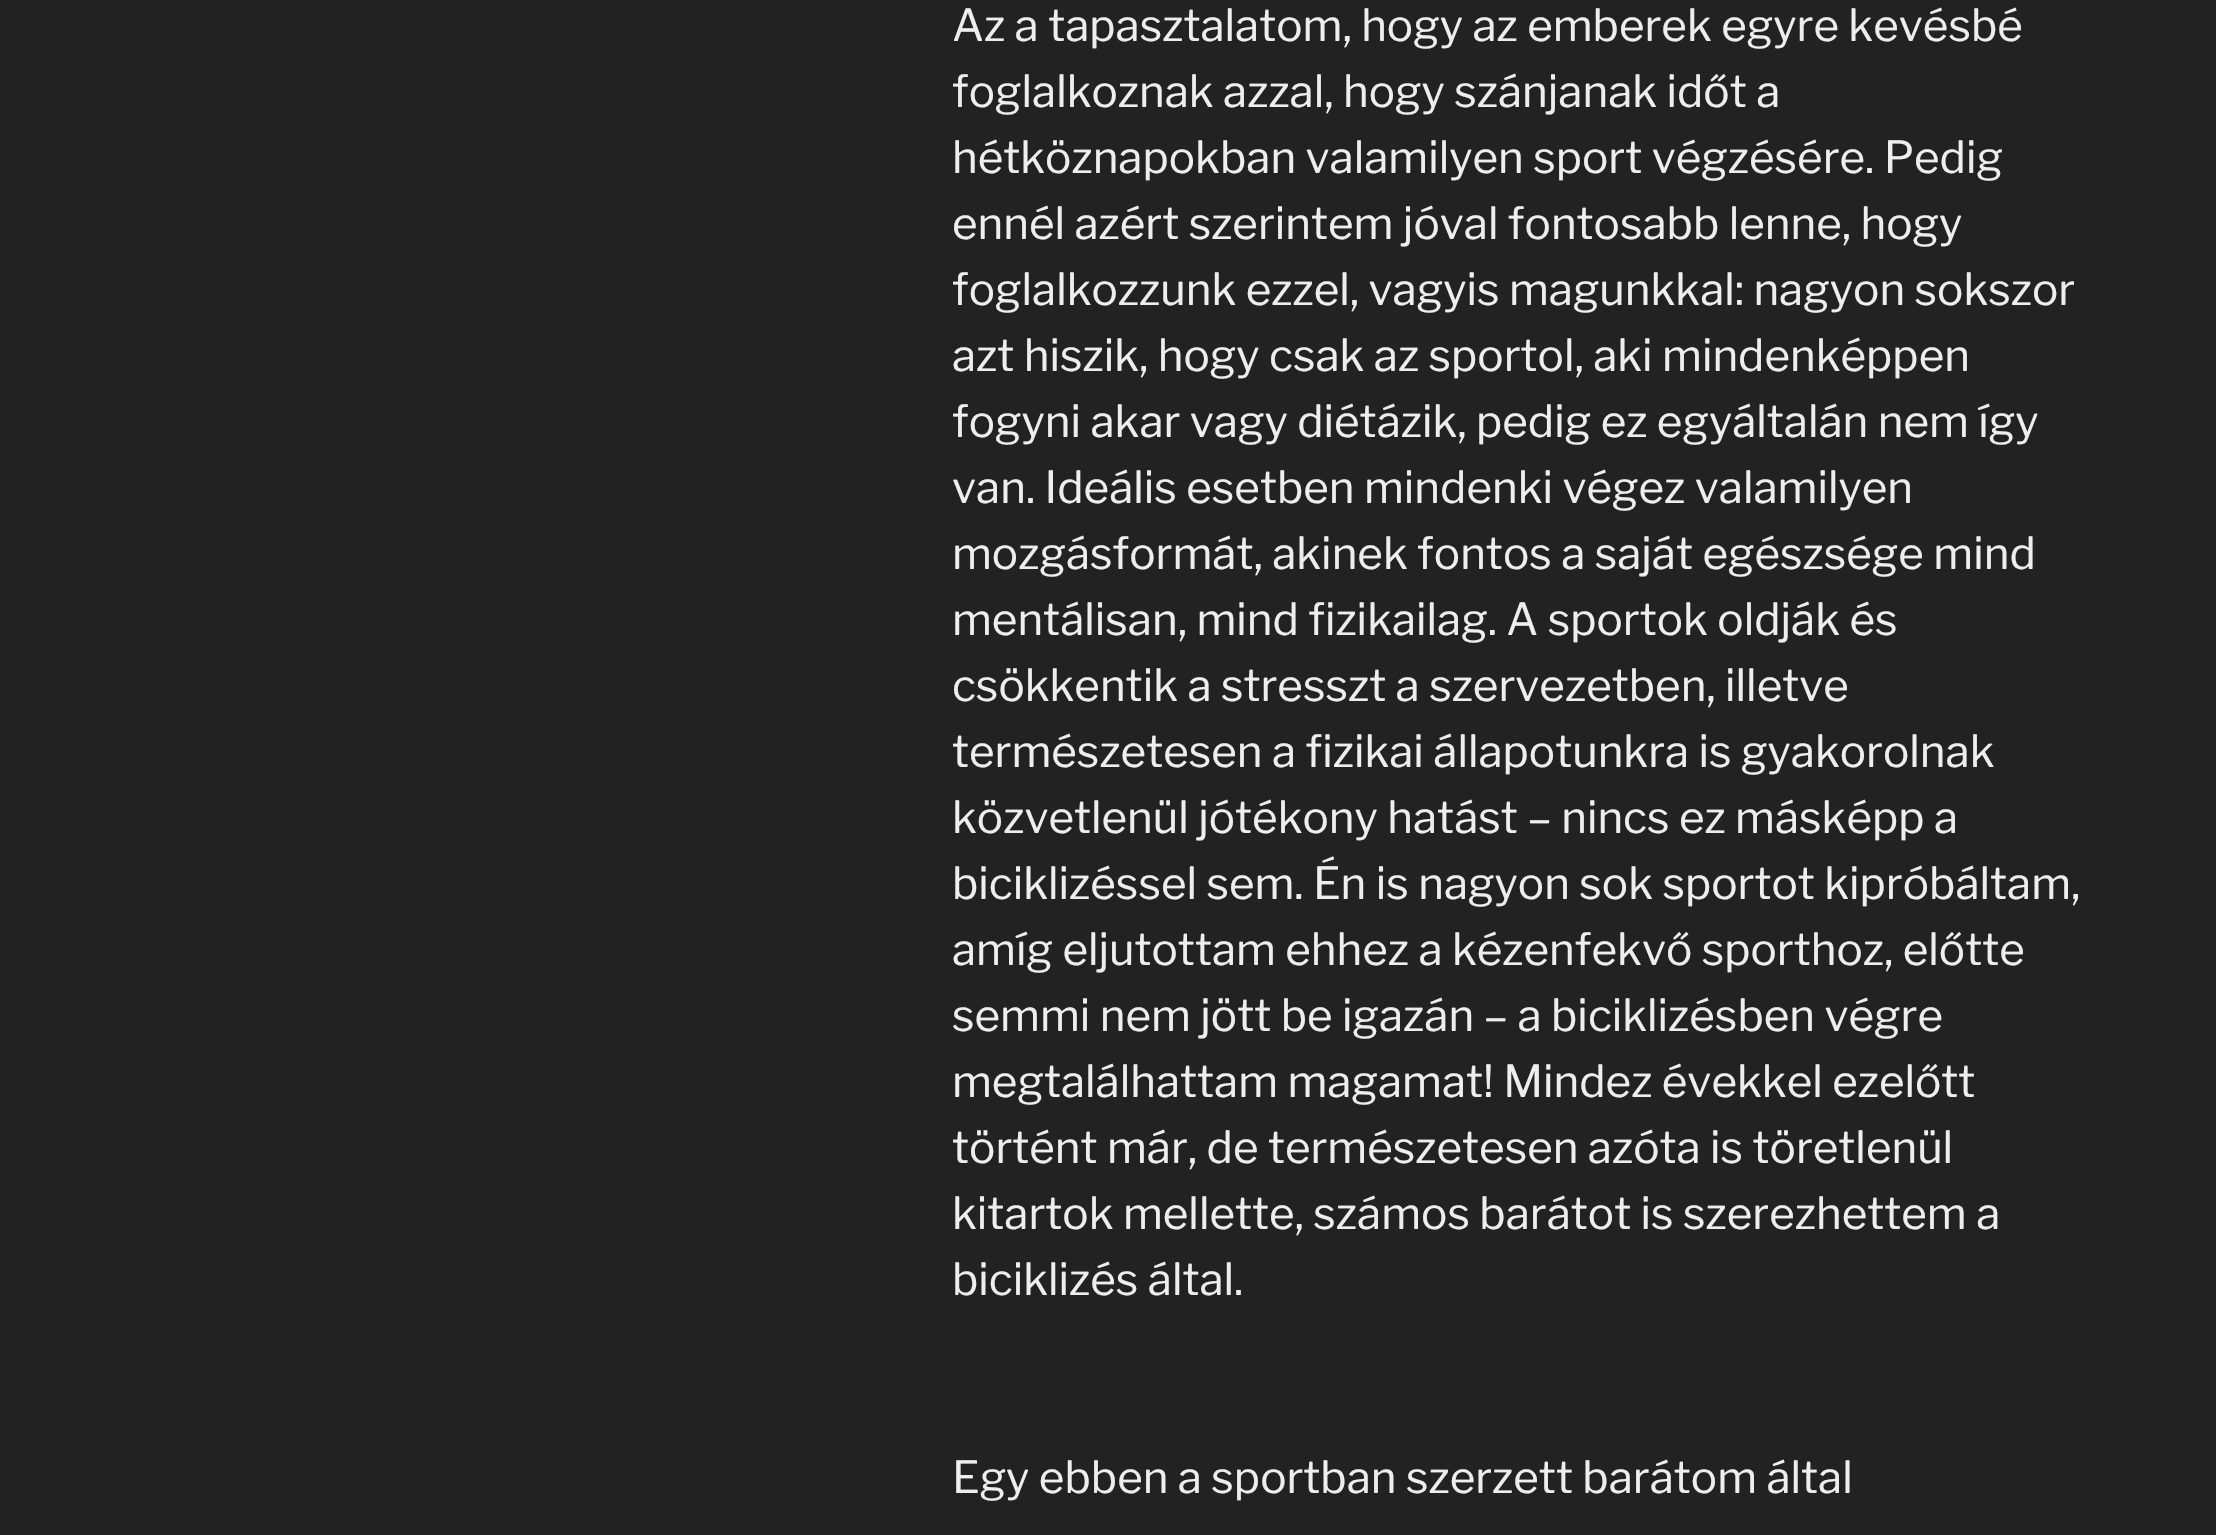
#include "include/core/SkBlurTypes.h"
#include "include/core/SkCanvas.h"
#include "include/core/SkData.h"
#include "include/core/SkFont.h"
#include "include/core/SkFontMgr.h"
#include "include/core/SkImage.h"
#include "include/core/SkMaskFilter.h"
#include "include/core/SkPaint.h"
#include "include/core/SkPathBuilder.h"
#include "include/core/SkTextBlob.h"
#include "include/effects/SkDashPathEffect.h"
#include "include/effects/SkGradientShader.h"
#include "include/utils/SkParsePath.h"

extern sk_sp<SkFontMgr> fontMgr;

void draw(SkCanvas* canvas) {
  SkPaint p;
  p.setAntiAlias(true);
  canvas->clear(SkColorSetRGB(34, 34, 34));
  SkFont font1(fontMgr->matchFamilyStyle("Libre Franklin", SkFontStyle(100, SkFontStyle::kNormal_Width, SkFontStyle::kUpright_Slant)), 44);
  font1.setSubpixel(true);
  p.setColor(SkColorSetRGB(238, 238, 238));
  canvas->drawString("Az a tapasztalatom, hogy az emberek egyre kevésbé", 952, 41, font1, p);
  canvas->drawString("foglalkoznak azzal, hogy szánjanak időt a", 952, 107, font1, p);
  canvas->drawString("hétköznapokban valamilyen sport végzésére. Pedig", 952, 173, font1, p);
  canvas->drawString("ennél azért szerintem jóval fontosabb lenne, hogy", 952, 239, font1, p);
  canvas->drawString("foglalkozzunk ezzel, vagyis magunkkal: nagyon sokszor", 952, 305, font1, p);
  canvas->drawString("azt hiszik, hogy csak az sportol, aki mindenképpen", 952, 371, font1, p);
  canvas->drawString("fogyni akar vagy diétázik, pedig ez egyáltalán nem így", 952, 437, font1, p);
  canvas->drawString("van. Ideális esetben mindenki végez valamilyen", 952, 503, font1, p);
  canvas->drawString("mozgásformát, akinek fontos a saját egészsége mind", 952, 569, font1, p);
  canvas->drawString("mentálisan, mind fizikailag. A sportok oldják és", 952, 635, font1, p);
  canvas->drawString("csökkentik a stresszt a szervezetben, illetve", 952, 701, font1, p);
  canvas->drawString("természetesen a fizikai állapotunkra is gyakorolnak", 952, 767, font1, p);
  canvas->drawString("közvetlenül jótékony hatást – nincs ez másképp a", 952, 833, font1, p);
  canvas->drawString("biciklizéssel sem. Én is nagyon sok sportot kipróbáltam,", 952, 899, font1, p);
  canvas->drawString("amíg eljutottam ehhez a kézenfekvő sporthoz, előtte", 952, 965, font1, p);
  canvas->drawString("semmi nem jött be igazán – a biciklizésben végre", 952, 1031, font1, p);
  canvas->drawString("megtalálhattam magamat! Mindez évekkel ezelőtt", 952, 1097, font1, p);
  canvas->drawString("történt már, de természetesen azóta is töretlenül", 952, 1163, font1, p);
  canvas->drawString("kitartok mellette, számos barátot is szerezhettem a", 952, 1229, font1, p);
  canvas->drawString("biciklizés által.", 952, 1295, font1, p);
  canvas->drawString("Egy ebben a sportban szerzett barátom által", 952, 1493, font1, p);
}
